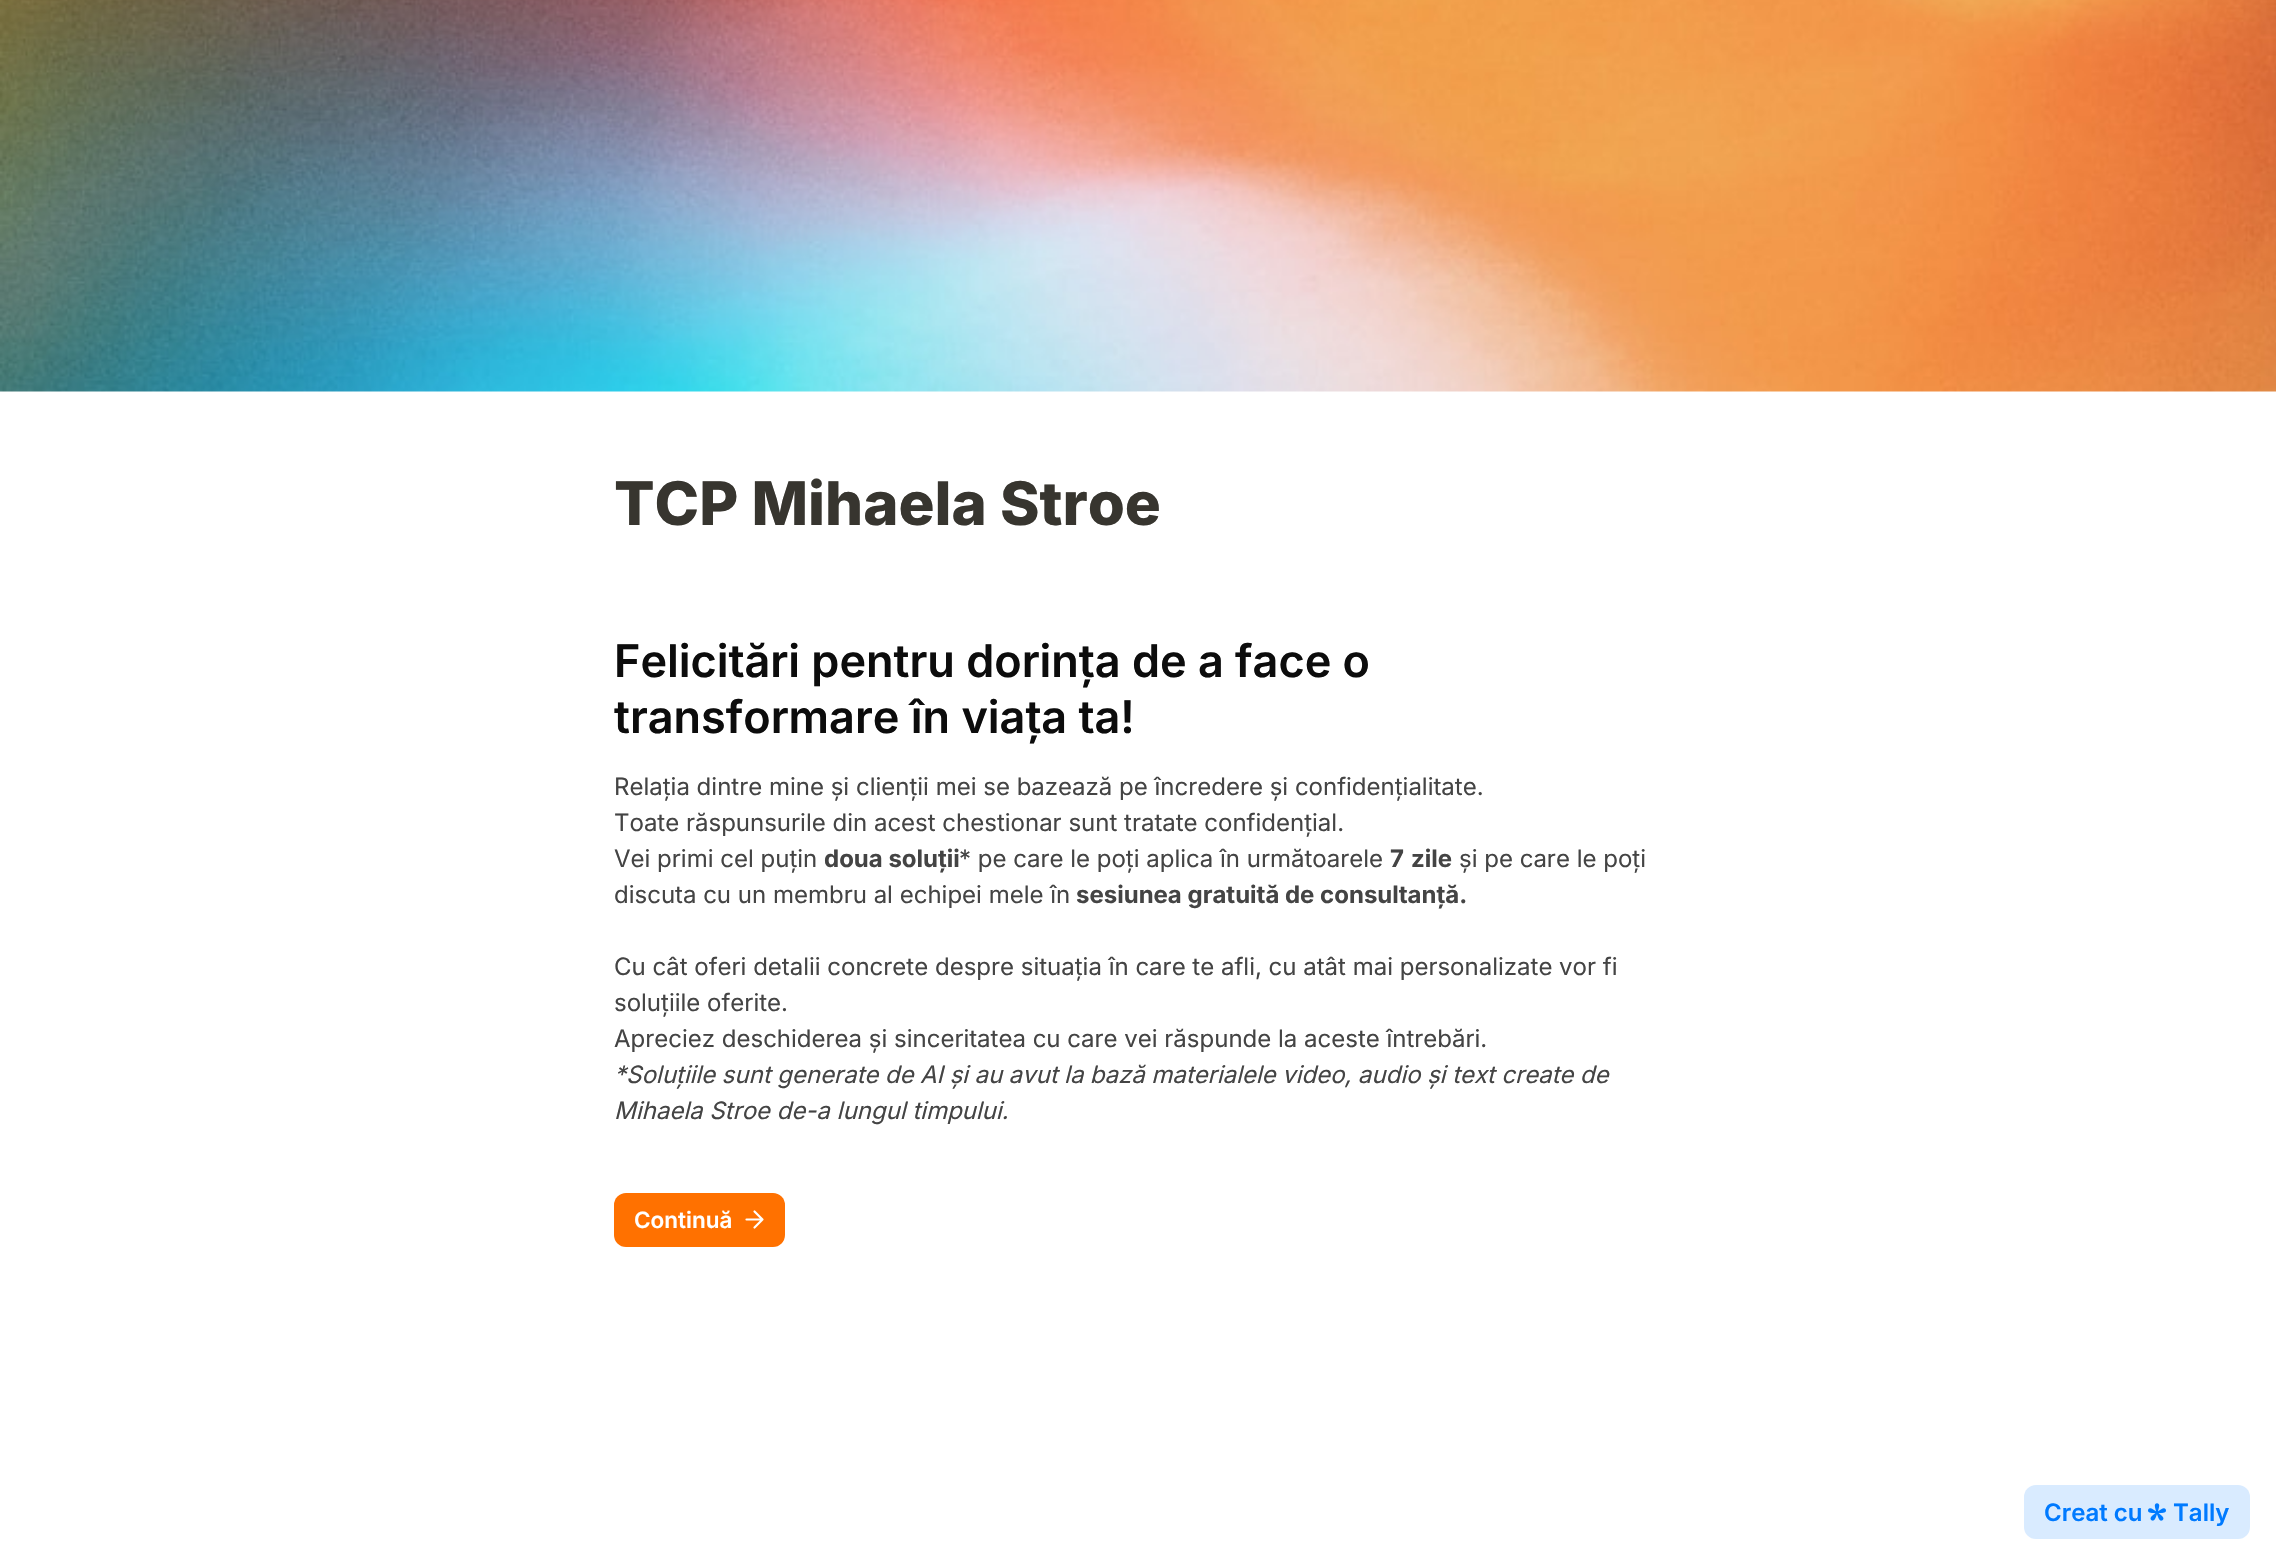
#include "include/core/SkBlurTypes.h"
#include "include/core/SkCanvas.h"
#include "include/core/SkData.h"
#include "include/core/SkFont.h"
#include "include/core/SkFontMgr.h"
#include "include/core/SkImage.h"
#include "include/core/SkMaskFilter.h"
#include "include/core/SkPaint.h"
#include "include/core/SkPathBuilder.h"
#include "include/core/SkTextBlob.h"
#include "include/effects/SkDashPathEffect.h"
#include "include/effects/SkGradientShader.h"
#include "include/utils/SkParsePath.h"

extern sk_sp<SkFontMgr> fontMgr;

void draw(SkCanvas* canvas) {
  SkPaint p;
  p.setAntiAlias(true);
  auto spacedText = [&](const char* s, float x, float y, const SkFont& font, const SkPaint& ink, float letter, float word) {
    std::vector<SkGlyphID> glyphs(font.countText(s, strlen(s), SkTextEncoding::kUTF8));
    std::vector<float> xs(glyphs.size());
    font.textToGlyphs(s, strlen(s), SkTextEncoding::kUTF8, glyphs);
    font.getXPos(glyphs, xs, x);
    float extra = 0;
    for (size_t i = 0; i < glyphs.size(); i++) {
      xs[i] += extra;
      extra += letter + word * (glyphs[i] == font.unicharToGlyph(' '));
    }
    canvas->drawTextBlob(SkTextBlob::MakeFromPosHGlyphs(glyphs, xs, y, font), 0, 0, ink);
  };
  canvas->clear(SK_ColorWHITE);
  canvas->drawImageRect(SkImages::DeferredFromEncodedData(SkData::MakeFromFileName("images/1.png")), SkRect::MakeLTRB(0, 0, 2276, 392), SkSamplingOptions());
  p.setColor(SkColorSetRGB(255, 113, 0));
  canvas->drawRoundRect(SkRect::MakeLTRB(614, 1193, 785, 1247), 12, 12, p);
  p.setStyle(SkPaint::kStroke_Style);
  p.setStrokeWidth(2.2f);
  p.setStrokeCap(SkPaint::kRound_Cap);
  p.setStrokeJoin(SkPaint::kRound_Join);
  p.setColor(SK_ColorWHITE);
  canvas->drawPath(SkPathBuilder().moveTo(746.5f, 1219.5f).lineTo(762.5f, 1219.5f).moveTo(754.5f, 1211.5f).lineTo(762.5f, 1219.5f).lineTo(754.5f, 1227.5f).detach(), p);
  p.setStyle(SkPaint::kFill_Style);
  p.setColor(SkColorSetRGB(217, 235, 255));
  canvas->drawRoundRect(SkRect::MakeLTRB(2024, 1485, 2250, 1539), 12, 12, p);
  canvas->drawImageRect(SkImages::DeferredFromEncodedData(SkData::MakeFromFileName("images/2.png")), SkRect::MakeLTRB(2148, 1503, 2166, 1521), SkSamplingOptions());
  SkFont font1(fontMgr->matchFamilyStyle("Inter", SkFontStyle(800, SkFontStyle::kNormal_Width, SkFontStyle::kUpright_Slant)), 60);
  font1.setSubpixel(true);
  p.setColor(SkColorSetRGB(55, 53, 47));
  canvas->drawString("TCP Mihaela Stroe", 614, 525, font1, p);
  SkFont font2(fontMgr->matchFamilyStyle("Inter", SkFontStyle(600, SkFontStyle::kNormal_Width, SkFontStyle::kUpright_Slant)), 45);
  font2.setSubpixel(true);
  p.setColor(SkColorSetRGB(12, 12, 12));
  canvas->drawString("Felicitări pentru dorința de a face o", 614, 677, font2, p);
  canvas->drawString("transformare în viața ta!", 614, 733, font2, p);
  SkFont font3(fontMgr->matchFamilyStyle("Inter", SkFontStyle::Normal()), 24);
  font3.setSubpixel(true);
  p.setColor(SkColorSetRGB(68, 68, 68));
  canvas->drawString("Relația dintre mine și clienții mei se bazează pe încredere și confidențialitate.", 614, 795, font3, p);
  canvas->drawString("Toate răspunsurile din acest chestionar sunt tratate confidențial.", 614, 831, font3, p);
  canvas->drawString("Vei primi cel puțin", 614, 867, font3, p);
  SkFont font4(fontMgr->matchFamilyStyle("Inter", SkFontStyle::Bold()), 24);
  font4.setSubpixel(true);
  canvas->drawString("doua soluții", 824, 867, font4, p);
  canvas->drawString("* pe care le poți aplica în următoarele", 959, 867, font3, p);
  canvas->drawString("7", 1390, 867, font4, p);
  canvas->drawString("zile", 1411, 867, font4, p);
  canvas->drawString("și pe care le poți", 1459, 867, font3, p);
  canvas->drawString("discuta cu un membru al echipei mele în", 614, 903, font3, p);
  canvas->drawString("sesiunea gratuită de consultanță.", 1076, 903, font4, p);
  canvas->drawString("Cu cât oferi detalii concrete despre situația în care te afli, cu atât mai personalizate vor fi", 614, 975, font3, p);
  canvas->drawString("soluțiile oferite.", 614, 1011, font3, p);
  canvas->drawString("Apreciez deschiderea și sinceritatea cu care vei răspunde la aceste întrebări.", 614, 1047, font3, p);
  SkFont font5(fontMgr->matchFamilyStyle("Inter", SkFontStyle::Italic()), 24);
  font5.setSubpixel(true);
  spacedText("*Soluțiile sunt generate de AI și au avut la bază materialele video, audio și text create de", 614, 1083, font5, p, 0, -0.25f);
  canvas->drawString("Mihaela Stroe de-a lungul timpului.", 614, 1119, font5, p);
  SkFont font6(fontMgr->matchFamilyStyle("Inter", SkFontStyle(600, SkFontStyle::kNormal_Width, SkFontStyle::kUpright_Slant)), 22.5f);
  font6.setSubpixel(true);
  p.setColor(SK_ColorWHITE);
  canvas->drawString("Continuă", 634, 1228, font6, p);
  SkFont font7(fontMgr->matchFamilyStyle("Inter", SkFontStyle(600, SkFontStyle::kNormal_Width, SkFontStyle::kUpright_Slant)), 24);
  font7.setSubpixel(true);
  p.setColor(SkColorSetRGB(0, 122, 255));
  canvas->drawString("Creat cu", 2044, 1521, font7, p);
  canvas->drawString("Tally", 2173, 1521, font7, p);
}
